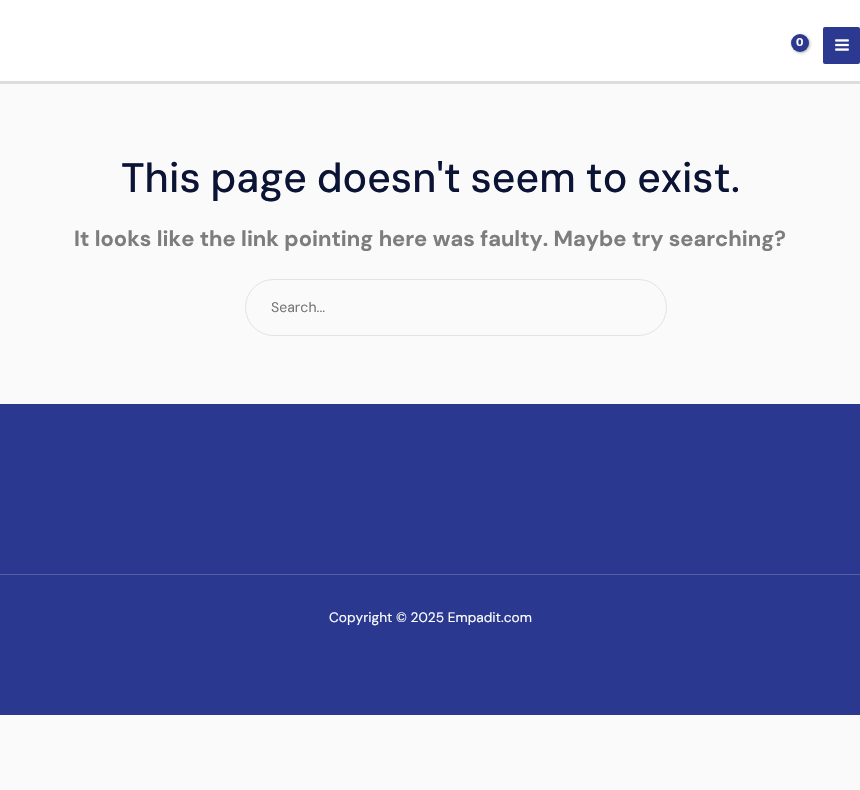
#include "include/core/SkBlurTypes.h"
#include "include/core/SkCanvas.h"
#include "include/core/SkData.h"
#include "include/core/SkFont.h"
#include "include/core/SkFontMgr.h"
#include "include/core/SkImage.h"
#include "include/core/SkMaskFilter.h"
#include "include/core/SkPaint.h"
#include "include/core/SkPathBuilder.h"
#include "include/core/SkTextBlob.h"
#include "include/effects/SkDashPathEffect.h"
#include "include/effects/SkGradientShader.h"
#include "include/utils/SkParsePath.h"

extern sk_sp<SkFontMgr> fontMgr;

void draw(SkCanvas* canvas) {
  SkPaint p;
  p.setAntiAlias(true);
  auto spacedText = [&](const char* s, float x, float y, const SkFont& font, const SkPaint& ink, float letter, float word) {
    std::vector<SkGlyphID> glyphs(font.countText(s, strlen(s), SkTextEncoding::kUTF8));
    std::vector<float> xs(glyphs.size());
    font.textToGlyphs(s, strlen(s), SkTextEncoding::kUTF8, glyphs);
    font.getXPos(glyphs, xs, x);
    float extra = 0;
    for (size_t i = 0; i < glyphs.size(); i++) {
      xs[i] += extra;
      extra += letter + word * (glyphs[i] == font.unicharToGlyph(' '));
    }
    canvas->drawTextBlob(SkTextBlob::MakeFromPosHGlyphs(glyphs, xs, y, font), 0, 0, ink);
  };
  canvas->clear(SkColorSetRGB(250, 250, 250));
  p.setColor(SK_ColorWHITE);
  canvas->drawRect(SkRect::MakeLTRB(0, 0, 860, 81), p);
  p.setColor(SkColorSetRGB(221, 221, 221));
  canvas->drawRect(SkRect::MakeLTRB(0, 81, 860, 84), p);
  p.setColor(SkColorSetARGB(77, 0, 0, 0));
  p.setMaskFilter(SkMaskFilter::MakeBlur(kNormal_SkBlurStyle, 1.5f));
  canvas->drawRoundRect(SkRect::MakeLTRB(792, 35, 810, 53), 9, 9, p);
  p.setMaskFilter(nullptr);
  p.setColor(SkColorSetRGB(42, 56, 143));
  canvas->drawCircle(800, 43, 9, p);
  p.setColor(SkColorSetRGB(43, 57, 144));
  canvas->drawRoundRect(SkRect::MakeLTRB(823, 27, 860, 64), 2, 2, p);
  canvas->drawImageRect(SkImages::DeferredFromEncodedData(SkData::MakeFromFileName("images/1.png")), SkRect::MakeLTRB(835, 39, 849, 51), SkSamplingOptions());
  p.setStyle(SkPaint::kStroke_Style);
  p.setStrokeWidth(1);
  p.setColor(SkColorSetRGB(227, 227, 227));
  canvas->drawRoundRect(SkRect::MakeLTRB(245.5f, 279.5f, 666.5f, 335.5f), 28, 28, p);
  p.setStyle(SkPaint::kFill_Style);
  p.setColor(SkColorSetRGB(42, 56, 143));
  canvas->drawRect(SkRect::MakeLTRB(0, 404, 860, 715), p);
  p.setColor(SkColorSetRGB(85, 96, 165));
  canvas->drawRect(SkRect::MakeLTRB(0, 574, 860, 575), p);
  SkFont font1(fontMgr->matchFamilyStyle("Inter", SkFontStyle::Bold()), 11);
  font1.setSubpixel(true);
  p.setColor(SK_ColorWHITE);
  canvas->drawString("0", 796, 46, font1, p);
  SkFont font2(fontMgr->matchFamilyStyle("DM Sans", SkFontStyle(500, SkFontStyle::kNormal_Width, SkFontStyle::kUpright_Slant)), 41);
  font2.setSubpixel(true);
  p.setColor(SkColorSetRGB(12, 20, 54));
  spacedText("This page doesn't seem to exist.", 121, 192, font2, p, 0, -1);
  SkFont font3(fontMgr->matchFamilyStyle("DM Sans", SkFontStyle::Bold()), 21.9f);
  font3.setSubpixel(true);
  p.setColor(SkColorSetRGB(125, 125, 125));
  spacedText("It looks like the link pointing here was faulty. Maybe try searching?", 74, 246, font3, p, 0, 0.25f);
  SkFont font4(fontMgr->matchFamilyStyle("DM Sans", SkFontStyle::Normal()), 14);
  font4.setSubpixel(true);
  p.setColor(SkColorSetRGB(117, 117, 117));
  canvas->drawString("Search...", 271, 312, font4, p);
  SkFont font5(fontMgr->matchFamilyStyle("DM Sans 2", SkFontStyle::Normal()), 13.7f);
  font5.setSubpixel(true);
  p.setColor(SK_ColorWHITE);
  canvas->drawString("Copyright © 2025 Empadit.com", 329, 622, font5, p);
}
